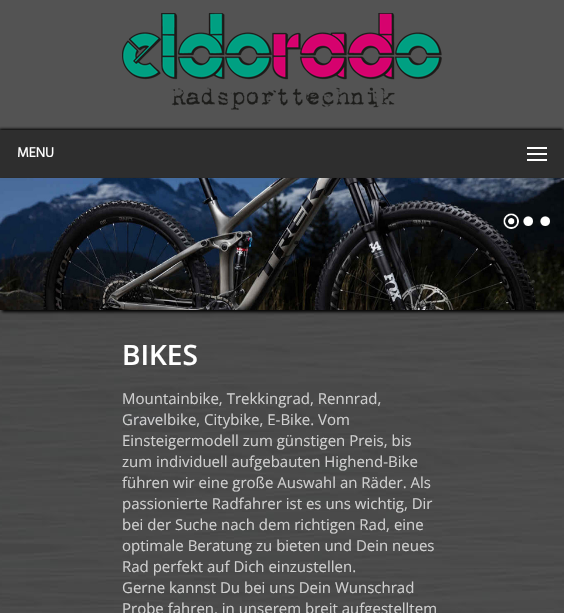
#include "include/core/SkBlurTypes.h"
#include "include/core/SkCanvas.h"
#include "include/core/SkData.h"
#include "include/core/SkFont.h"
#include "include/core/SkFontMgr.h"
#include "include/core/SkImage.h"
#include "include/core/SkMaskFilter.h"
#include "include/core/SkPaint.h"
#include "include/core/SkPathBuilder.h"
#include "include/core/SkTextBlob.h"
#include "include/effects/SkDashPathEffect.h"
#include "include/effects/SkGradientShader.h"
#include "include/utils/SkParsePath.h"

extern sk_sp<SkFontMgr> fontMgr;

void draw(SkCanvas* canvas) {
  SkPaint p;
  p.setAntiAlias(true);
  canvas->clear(SK_ColorWHITE);
  canvas->drawImageRect(SkImages::DeferredFromEncodedData(SkData::MakeFromFileName("images/1.png")), SkRect::MakeLTRB(0, 310, 564, 613), SkSamplingOptions());
  p.setColor(SkColorSetRGB(83, 83, 83));
  canvas->drawRect(SkRect::MakeLTRB(0, 0, 564, 130), p);
  canvas->drawImageRect(SkImages::DeferredFromEncodedData(SkData::MakeFromFileName("images/2.png")), SkRect::MakeLTRB(122, 13, 442, 110), SkSamplingOptions());
  p.setColor(SK_ColorBLACK);
  p.setMaskFilter(SkMaskFilter::MakeBlur(kNormal_SkBlurStyle, 1.5f));
  canvas->drawRect(SkRect::MakeLTRB(1, 131, 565, 179), p);
  p.setMaskFilter(nullptr);
  p.setMaskFilter(SkMaskFilter::MakeBlur(kNormal_SkBlurStyle, 1.5f));
  canvas->drawRect(SkRect::MakeLTRB(-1, 129, 563, 177), p);
  p.setMaskFilter(nullptr);
  p.setColor(SkColorSetRGB(46, 46, 46));
  canvas->drawRect(SkRect::MakeLTRB(0, 130, 564, 178), p);
  p.setColor(SK_ColorWHITE);
  canvas->drawRect(SkRect::MakeLTRB(527, 147, 547, 149), p);
  canvas->drawRect(SkRect::MakeLTRB(527, 153, 547, 155), p);
  canvas->drawRect(SkRect::MakeLTRB(527, 159, 547, 161), p);
  p.setColor(SK_ColorBLACK);
  p.setMaskFilter(SkMaskFilter::MakeBlur(kNormal_SkBlurStyle, 1.5f));
  canvas->drawRect(SkRect::MakeLTRB(2, 180, 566, 312), p);
  p.setMaskFilter(nullptr);
  canvas->drawImageRect(SkImages::DeferredFromEncodedData(SkData::MakeFromFileName("images/3.png")), SkRect::MakeLTRB(0, 178, 564, 310), SkSamplingOptions());
  canvas->drawImageRect(SkImages::DeferredFromEncodedData(SkData::MakeFromFileName("images/4.png")), SkRect::MakeLTRB(503, 213, 519, 229), SkSamplingOptions());
  canvas->drawImageRect(SkImages::DeferredFromEncodedData(SkData::MakeFromFileName("images/5.png")), SkRect::MakeLTRB(523, 216, 533, 226), SkSamplingOptions());
  canvas->drawImageRect(SkImages::DeferredFromEncodedData(SkData::MakeFromFileName("images/6.png")), SkRect::MakeLTRB(540, 216, 550, 226), SkSamplingOptions());
  SkFont font1(fontMgr->matchFamilyStyle("Hind", SkFontStyle::Bold()), 14);
  font1.setSubpixel(true);
  p.setColor(SK_ColorWHITE);
  canvas->drawString("MENU", 17, 157, font1, p);
  SkFont font2(fontMgr->matchFamilyStyle("Open Sans", SkFontStyle(600, SkFontStyle::kNormal_Width, SkFontStyle::kUpright_Slant)), 28);
  font2.setSubpixel(true);
  canvas->drawString("BIKES", 122, 365, font2, p);
  SkFont font3(fontMgr->matchFamilyStyle("Open Sans", SkFontStyle::Normal()), 15);
  font3.setSubpixel(true);
  p.setColor(SkColorSetRGB(207, 207, 207));
  canvas->drawString("Mountainbike, Trekkingrad, Rennrad,", 122, 404, font3, p);
  canvas->drawString("Gravelbike, Citybike, E-Bike. Vom", 122, 425, font3, p);
  canvas->drawString("Einsteigermodell zum günstigen Preis, bis", 122, 446, font3, p);
  canvas->drawString("zum individuell aufgebauten Highend-Bike", 122, 467, font3, p);
  canvas->drawString("führen wir eine große Auswahl an Räder. Als", 122, 488, font3, p);
  canvas->drawString("passionierte Radfahrer ist es uns wichtig, Dir", 122, 509, font3, p);
  canvas->drawString("bei der Suche nach dem richtigen Rad, eine", 122, 530, font3, p);
  canvas->drawString("optimale Beratung zu bieten und Dein neues", 122, 551, font3, p);
  canvas->drawString("Rad perfekt auf Dich einzustellen.", 122, 572, font3, p);
  canvas->drawString("Gerne kannst Du bei uns Dein Wunschrad", 122, 593, font3, p);
  canvas->drawString("Probe fahren, in unserem breit aufgestelltem", 122, 614, font3, p);
}
